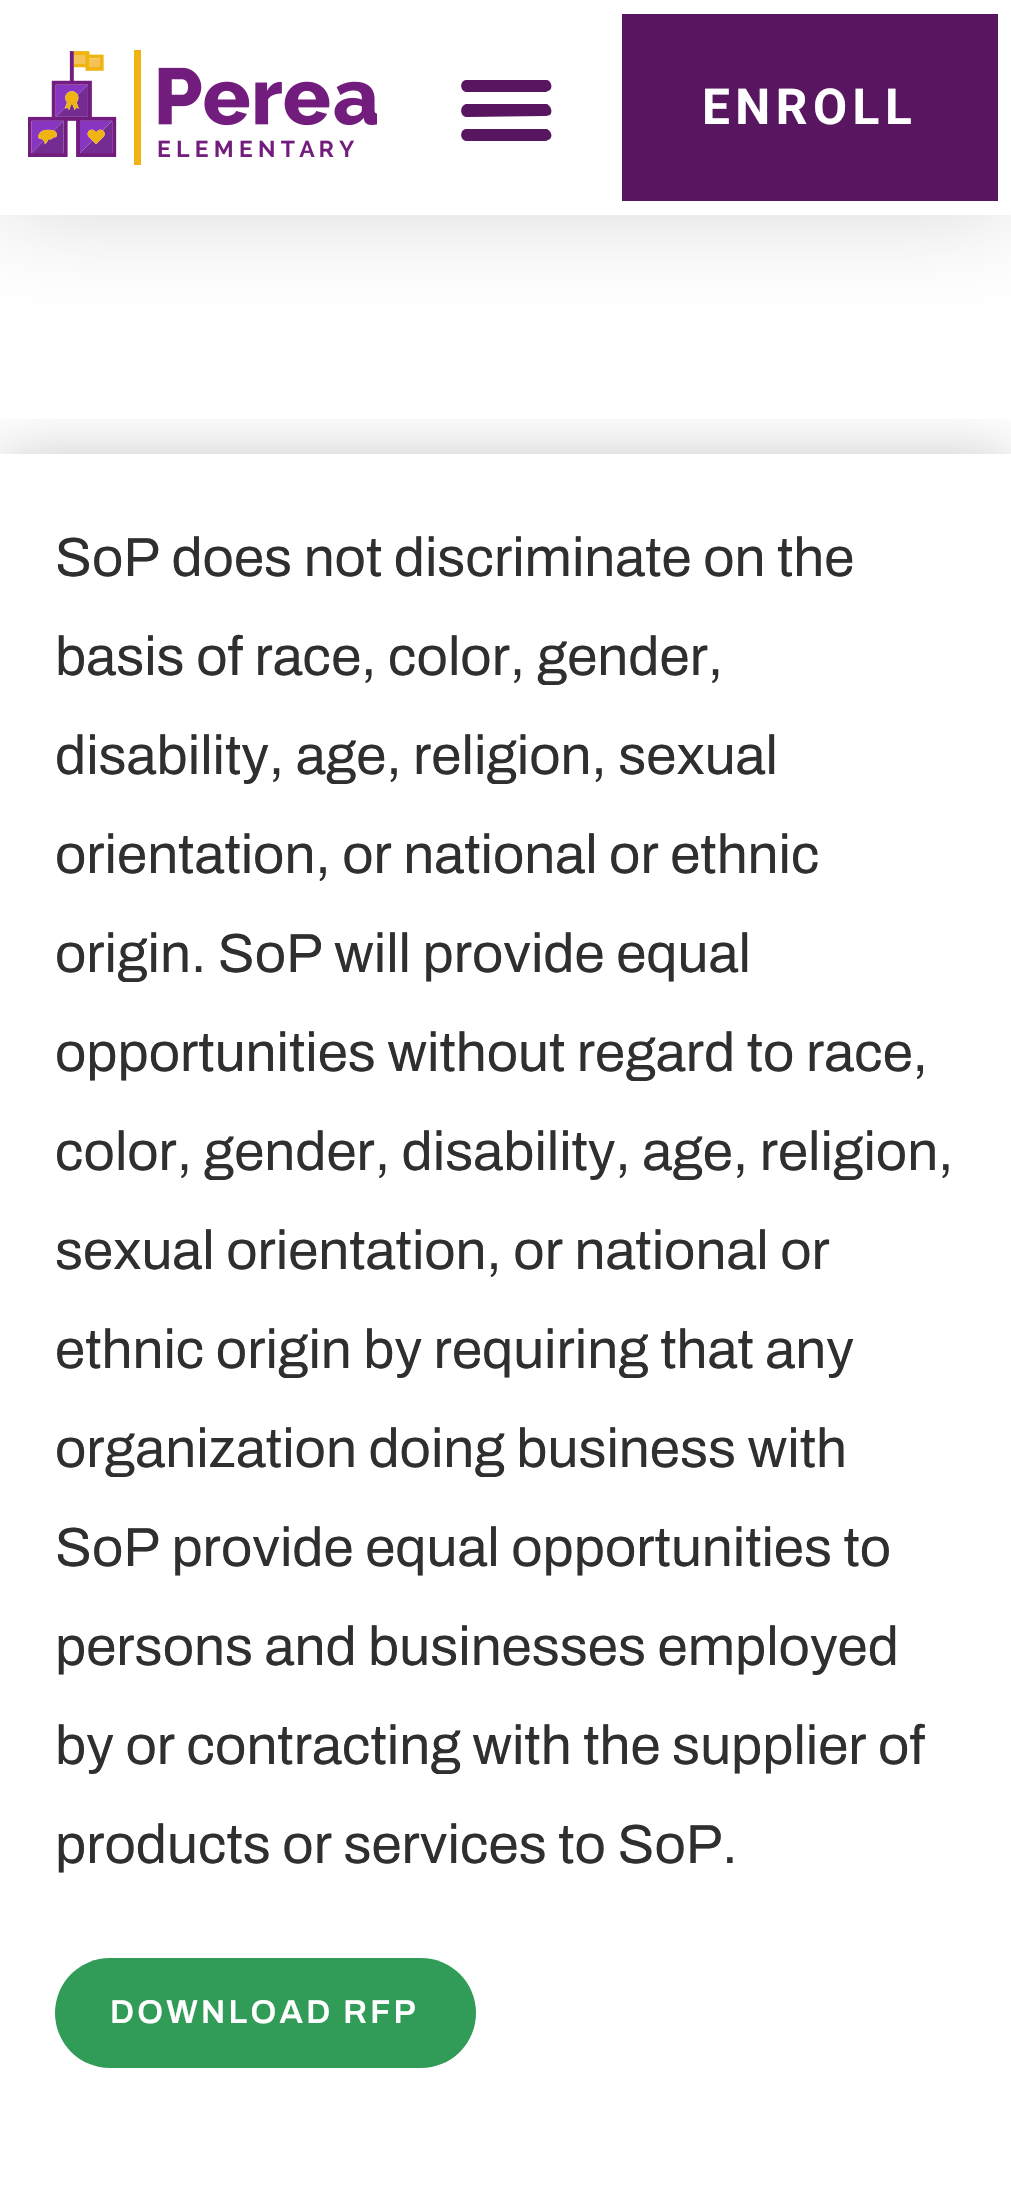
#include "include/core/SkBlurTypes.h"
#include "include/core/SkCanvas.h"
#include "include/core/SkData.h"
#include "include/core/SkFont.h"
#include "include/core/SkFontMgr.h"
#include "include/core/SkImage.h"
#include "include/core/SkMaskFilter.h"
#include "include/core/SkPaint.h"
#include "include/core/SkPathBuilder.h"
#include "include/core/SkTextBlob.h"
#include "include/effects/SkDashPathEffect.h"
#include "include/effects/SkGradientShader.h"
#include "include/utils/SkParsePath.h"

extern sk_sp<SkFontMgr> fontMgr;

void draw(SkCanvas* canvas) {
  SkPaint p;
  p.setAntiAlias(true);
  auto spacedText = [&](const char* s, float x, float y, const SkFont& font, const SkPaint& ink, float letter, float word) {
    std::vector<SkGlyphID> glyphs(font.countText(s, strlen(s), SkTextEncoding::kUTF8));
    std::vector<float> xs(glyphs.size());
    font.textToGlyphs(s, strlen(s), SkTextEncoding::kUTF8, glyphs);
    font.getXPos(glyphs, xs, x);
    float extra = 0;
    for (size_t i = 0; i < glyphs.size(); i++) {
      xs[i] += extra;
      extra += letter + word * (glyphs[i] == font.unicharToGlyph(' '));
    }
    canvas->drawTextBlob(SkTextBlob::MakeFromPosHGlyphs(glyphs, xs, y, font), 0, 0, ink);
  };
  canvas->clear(SK_ColorWHITE);
  p.setColor(SkColorSetARGB(38, 0, 0, 0));
  p.setMaskFilter(SkMaskFilter::MakeBlur(kNormal_SkBlurStyle, 48));
  canvas->drawRect(SkRect::MakeLTRB(0, 0, 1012, 215), p);
  p.setMaskFilter(nullptr);
  p.setColor(SK_ColorWHITE);
  canvas->drawRect(SkRect::MakeLTRB(0, 0, 608, 215), p);
  canvas->drawImageRect(SkImages::DeferredFromEncodedData(SkData::MakeFromFileName("images/1.png")), SkRect::MakeLTRB(28, 50, 377, 165), SkSamplingOptions());
  p.setColor(SkColorSetRGB(88, 21, 96));
  canvas->drawPath(SkPathBuilder().moveTo(467, 92).lineTo(546, 92).lineTo(550, 90).cubicTo(553, 87, 551, 81, 547, 80).lineTo(466, 80).cubicTo(459, 81, 460, 92, 467, 92).close().moveTo(467, 117).lineTo(546, 116).lineTo(550, 115).cubicTo(553, 112, 551, 106, 547, 104).lineTo(466, 104).cubicTo(459, 106, 460, 117, 467, 117).close().moveTo(467, 141).lineTo(546, 141).lineTo(550, 139).cubicTo(553, 136, 551, 131, 547, 129).lineTo(466, 129).cubicTo(459, 130, 460, 141, 467, 141).close().detach(), p);
  canvas->drawRect(SkRect::MakeLTRB(615, 7, 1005, 208), p);
  p.setStyle(SkPaint::kStroke_Style);
  p.setStrokeWidth(14);
  p.setColor(SK_ColorWHITE);
  canvas->drawRect(SkRect::MakeLTRB(615, 7, 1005, 208), p);
  canvas->save();
  canvas->clipRect(SkRect::MakeLTRB(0, 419, 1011, 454));
  p.setStyle(SkPaint::kFill_Style);
  p.setColor(SkColorSetARGB(51, 0, 0, 0));
  p.setMaskFilter(SkMaskFilter::MakeBlur(kNormal_SkBlurStyle, 27.5f));
  canvas->drawRect(SkRect::MakeLTRB(0, 454, 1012, 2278), p);
  p.setMaskFilter(nullptr);
  canvas->restore();
  p.setColor(SkColorSetRGB(49, 155, 88));
  canvas->drawRoundRect(SkRect::MakeLTRB(55, 1958, 476, 2068), 55, 55, p);
  SkFont font1(fontMgr->matchFamilyStyle("Roboto", SkFontStyle::Bold()), 49.5f);
  font1.setSubpixel(true);
  p.setColor(SK_ColorWHITE);
  spacedText("ENROLL", 702, 124, font1, p, 5.5f, 0);
  SkFont font2(fontMgr->matchFamilyStyle("Archivo", SkFontStyle::Normal()), 55);
  font2.setSubpixel(true);
  p.setColor(SkColorSetRGB(47, 47, 47));
  canvas->drawString("SoP does not discriminate on the", 55, 576, font2, p);
  canvas->drawString("basis of race, color, gender,", 55, 675, font2, p);
  canvas->drawString("disability, age, religion, sexual", 55, 774, font2, p);
  canvas->drawString("orientation, or national or ethnic", 55, 873, font2, p);
  canvas->drawString("origin. SoP will provide equal", 55, 972, font2, p);
  canvas->drawString("opportunities without regard to race,", 55, 1071, font2, p);
  canvas->drawString("color, gender, disability, age, religion,", 55, 1170, font2, p);
  canvas->drawString("sexual orientation, or national or", 55, 1269, font2, p);
  canvas->drawString("ethnic origin by requiring that any", 55, 1368, font2, p);
  canvas->drawString("organization doing business with", 55, 1467, font2, p);
  canvas->drawString("SoP provide equal opportunities to", 55, 1566, font2, p);
  canvas->drawString("persons and businesses employed", 55, 1665, font2, p);
  canvas->drawString("by or contracting with the supplier of", 55, 1764, font2, p);
  canvas->drawString("products or services to SoP.", 55, 1863, font2, p);
  SkFont font3(fontMgr->matchFamilyStyle("Archivo", SkFontStyle(600, SkFontStyle::kNormal_Width, SkFontStyle::kUpright_Slant)), 33);
  font3.setSubpixel(true);
  p.setColor(SK_ColorWHITE);
  spacedText("DOWNLOAD RFP", 110, 2023, font3, p, 3.25f, 0);
}
